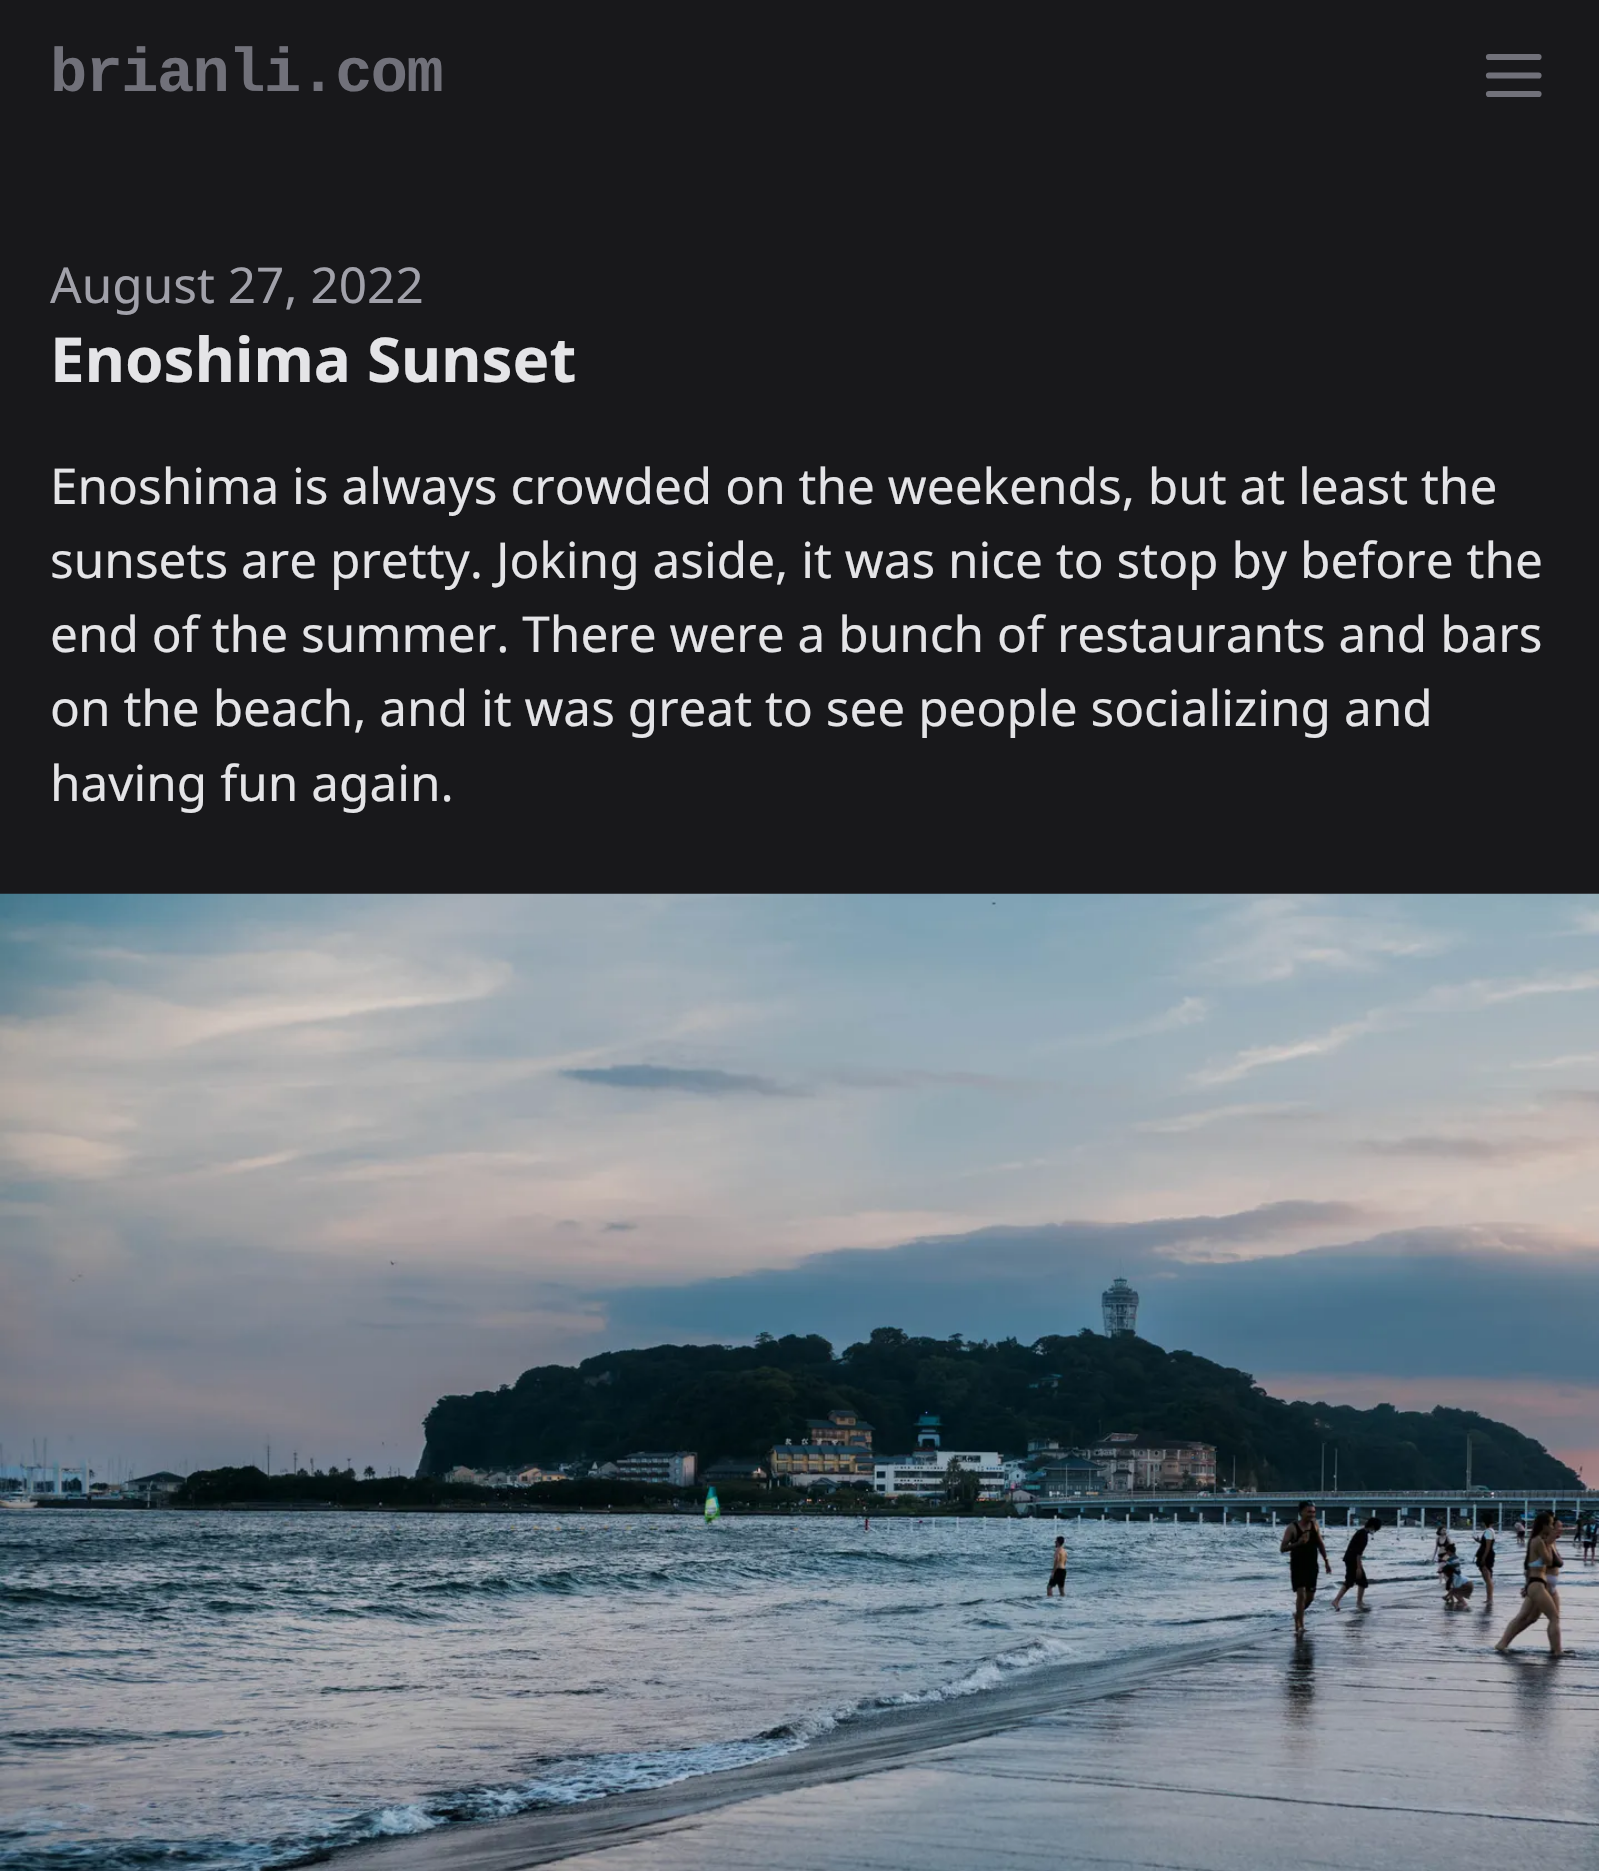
#include "include/core/SkBlurTypes.h"
#include "include/core/SkCanvas.h"
#include "include/core/SkData.h"
#include "include/core/SkFont.h"
#include "include/core/SkFontMgr.h"
#include "include/core/SkImage.h"
#include "include/core/SkMaskFilter.h"
#include "include/core/SkPaint.h"
#include "include/core/SkPathBuilder.h"
#include "include/core/SkTextBlob.h"
#include "include/effects/SkDashPathEffect.h"
#include "include/effects/SkGradientShader.h"
#include "include/utils/SkParsePath.h"

extern sk_sp<SkFontMgr> fontMgr;

void draw(SkCanvas* canvas) {
  SkPaint p;
  p.setAntiAlias(true);
  auto spacedText = [&](const char* s, float x, float y, const SkFont& font, const SkPaint& ink, float letter, float word) {
    std::vector<SkGlyphID> glyphs(font.countText(s, strlen(s), SkTextEncoding::kUTF8));
    std::vector<float> xs(glyphs.size());
    font.textToGlyphs(s, strlen(s), SkTextEncoding::kUTF8, glyphs);
    font.getXPos(glyphs, xs, x);
    float extra = 0;
    for (size_t i = 0; i < glyphs.size(); i++) {
      xs[i] += extra;
      extra += letter + word * (glyphs[i] == font.unicharToGlyph(' '));
    }
    canvas->drawTextBlob(SkTextBlob::MakeFromPosHGlyphs(glyphs, xs, y, font), 0, 0, ink);
  };
  canvas->clear(SkColorSetRGB(24, 24, 27));
  p.setStyle(SkPaint::kStroke_Style);
  p.setStrokeWidth(6.2f);
  p.setStrokeCap(SkPaint::kRound_Cap);
  p.setStrokeJoin(SkPaint::kRound_Join);
  p.setColor(SkColorSetRGB(113, 113, 122));
  canvas->drawPath(SkPathBuilder().moveTo(1489, 57).lineTo(1538.5f, 57).moveTo(1489, 75.5f).lineTo(1538.5f, 75.5f).moveTo(1489, 94).lineTo(1538.5f, 94).detach(), p);
  canvas->drawImageRect(SkImages::DeferredFromEncodedData(SkData::MakeFromFileName("images/1.png")), SkRect::MakeLTRB(0, 893, 1599, 1871), SkSamplingOptions());
  SkFont font1(fontMgr->matchFamilyStyle("Liberation Mono", SkFontStyle::Bold()), 61.9f);
  font1.setSubpixel(true);
  p.setStyle(SkPaint::kFill_Style);
  spacedText("brianli.com", 50, 91, font1, p, -1.5f, 0);
  SkFont font2(fontMgr->matchFamilyStyle("Noto Sans", SkFontStyle::Normal()), 49.5f);
  font2.setSubpixel(true);
  p.setColor(SkColorSetRGB(161, 161, 170));
  canvas->drawString("August 27, 2022", 50, 303, font2, p);
  SkFont font3(fontMgr->matchFamilyStyle("Noto Sans", SkFontStyle::Bold()), 61.9f);
  font3.setSubpixel(true);
  p.setColor(SkColorSetRGB(228, 228, 231));
  canvas->drawString("Enoshima Sunset", 50, 382, font3, p);
  canvas->drawString("Enoshima is always crowded on the weekends, but at least the", 50, 504, font2, p);
  canvas->drawString("sunsets are pretty. Joking aside, it was nice to stop by before the", 50, 578, font2, p);
  canvas->drawString("end of the summer. There were a bunch of restaurants and bars", 50, 652, font2, p);
  canvas->drawString("on the beach, and it was great to see people socializing and", 50, 726, font2, p);
  canvas->drawString("having fun again.", 50, 801, font2, p);
}
